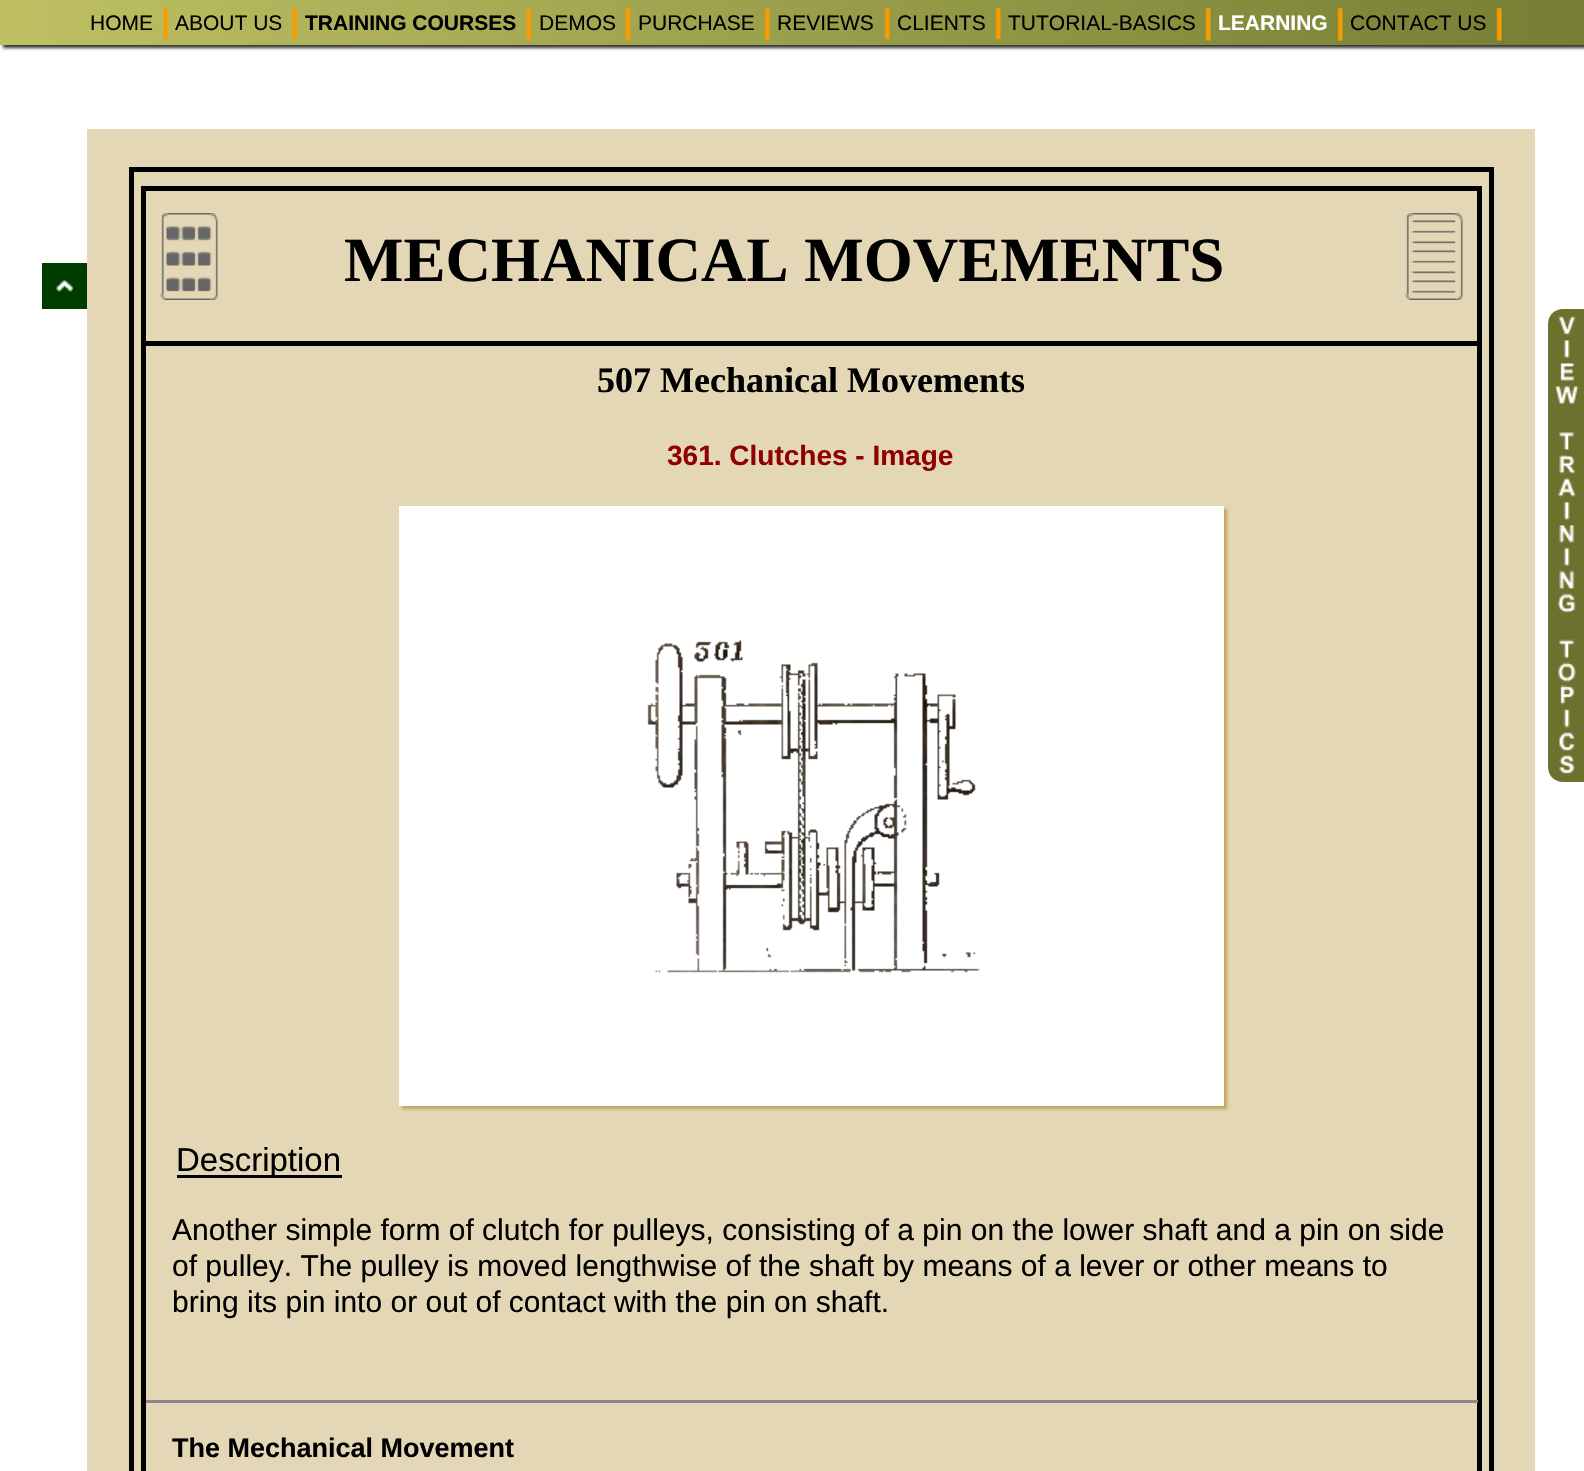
#include "include/core/SkBlurTypes.h"
#include "include/core/SkCanvas.h"
#include "include/core/SkData.h"
#include "include/core/SkFont.h"
#include "include/core/SkFontMgr.h"
#include "include/core/SkImage.h"
#include "include/core/SkMaskFilter.h"
#include "include/core/SkPaint.h"
#include "include/core/SkPathBuilder.h"
#include "include/core/SkTextBlob.h"
#include "include/effects/SkDashPathEffect.h"
#include "include/effects/SkGradientShader.h"
#include "include/utils/SkParsePath.h"

extern sk_sp<SkFontMgr> fontMgr;

void draw(SkCanvas* canvas) {
  SkPaint p;
  p.setAntiAlias(true);
  canvas->clear(SK_ColorWHITE);
  p.setColor(SkColorSetRGB(51, 51, 51));
  p.setMaskFilter(SkMaskFilter::MakeBlur(kNormal_SkBlurStyle, 1.5f));
  canvas->drawRect(SkRect::MakeLTRB(3, 3, 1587, 48), p);
  p.setMaskFilter(nullptr);
  {
    const SkColor colors[] = {SkColorSetRGB(190, 192, 98), SkColorSetRGB(117, 126, 51)};
    const float stops[] = {0, 1};
    const SkPoint ends[] = {{0, 23}, {1584, 22}};
    p.setShader(SkGradientShader::MakeLinear(ends, colors, stops, 2, SkTileMode::kClamp));
    p.setAlpha(255);
  }
  canvas->drawRect(SkRect::MakeLTRB(0, 0, 1584, 45), p);
  canvas->drawImageRect(SkImages::DeferredFromEncodedData(SkData::MakeFromFileName("images/1.png")), SkRect::MakeLTRB(163, 8, 169, 40), SkSamplingOptions());
  canvas->drawImageRect(SkImages::DeferredFromEncodedData(SkData::MakeFromFileName("images/2.png")), SkRect::MakeLTRB(292, 8, 298, 40), SkSamplingOptions());
  canvas->drawImageRect(SkImages::DeferredFromEncodedData(SkData::MakeFromFileName("images/3.png")), SkRect::MakeLTRB(526, 8, 532, 41), SkSamplingOptions());
  canvas->drawImageRect(SkImages::DeferredFromEncodedData(SkData::MakeFromFileName("images/4.png")), SkRect::MakeLTRB(625, 8, 631, 41), SkSamplingOptions());
  canvas->drawImageRect(SkImages::DeferredFromEncodedData(SkData::MakeFromFileName("images/5.png")), SkRect::MakeLTRB(764, 8, 770, 41), SkSamplingOptions());
  canvas->drawImageRect(SkImages::DeferredFromEncodedData(SkData::MakeFromFileName("images/6.png")), SkRect::MakeLTRB(884, 8, 890, 40), SkSamplingOptions());
  canvas->drawImageRect(SkImages::DeferredFromEncodedData(SkData::MakeFromFileName("images/7.png")), SkRect::MakeLTRB(995, 8, 1001, 40), SkSamplingOptions());
  canvas->drawImageRect(SkImages::DeferredFromEncodedData(SkData::MakeFromFileName("images/8.png")), SkRect::MakeLTRB(1205, 8, 1211, 41), SkSamplingOptions());
  canvas->drawImageRect(SkImages::DeferredFromEncodedData(SkData::MakeFromFileName("images/9.png")), SkRect::MakeLTRB(1337, 8, 1343, 41), SkSamplingOptions());
  canvas->drawImageRect(SkImages::DeferredFromEncodedData(SkData::MakeFromFileName("images/10.png")), SkRect::MakeLTRB(1496, 8, 1502, 41), SkSamplingOptions());
  p.setShader(nullptr);
  p.setColor(SkColorSetRGB(0, 60, 0));
  canvas->drawRect(SkRect::MakeLTRB(42, 263, 87, 309), p);
  canvas->drawImageRect(SkImages::DeferredFromEncodedData(SkData::MakeFromFileName("images/11.png")), SkRect::MakeLTRB(56, 279, 74, 292), SkSamplingOptions());
  p.setColor(SkColorSetRGB(228, 215, 181));
  canvas->drawRect(SkRect::MakeLTRB(87, 129, 1535, 1471), p);
  p.setStyle(SkPaint::kStroke_Style);
  p.setStrokeWidth(5);
  p.setColor(SK_ColorBLACK);
  canvas->drawRect(SkRect::MakeLTRB(131.5f, 169.5f, 1491.5f, 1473.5f), p);
  canvas->drawRect(SkRect::MakeLTRB(143.5f, 188.5f, 1479.5f, 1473.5f), p);
  p.setStyle(SkPaint::kFill_Style);
  canvas->drawRect(SkRect::MakeLTRB(146, 341, 1478, 346), p);
  canvas->drawImageRect(SkImages::DeferredFromEncodedData(SkData::MakeFromFileName("images/12.png")), SkRect::MakeLTRB(160, 213, 218, 300), SkSamplingOptions());
  canvas->drawImageRect(SkImages::DeferredFromEncodedData(SkData::MakeFromFileName("images/13.png")), SkRect::MakeLTRB(1405, 213, 1463, 300), SkSamplingOptions());
  p.setColor(SkColorSetRGB(195, 164, 87));
  p.setMaskFilter(SkMaskFilter::MakeBlur(kNormal_SkBlurStyle, 1.5f));
  canvas->drawRect(SkRect::MakeLTRB(402, 509, 1227, 1109), p);
  p.setMaskFilter(nullptr);
  p.setColor(SK_ColorWHITE);
  canvas->drawRect(SkRect::MakeLTRB(399, 506, 1224, 1106), p);
  canvas->drawImageRect(SkImages::DeferredFromEncodedData(SkData::MakeFromFileName("images/14.png")), SkRect::MakeLTRB(647, 640, 980, 973), SkSamplingOptions());
  p.setColor(SK_ColorBLACK);
  canvas->drawRect(SkRect::MakeLTRB(177, 1175, 342, 1178), p);
  p.setColor(SkColorSetRGB(136, 136, 136));
  canvas->drawRect(SkRect::MakeLTRB(146, 1400, 1478, 1403), p);
  p.setColor(SkColorSetRGB(108, 114, 45));
  canvas->drawPath(SkPathBuilder().moveTo(1563, 309).lineTo(1584, 309).lineTo(1584, 782).lineTo(1563, 782).cubicTo(1554.5f, 782, 1548, 775.5f, 1548, 767).lineTo(1548, 324).cubicTo(1548, 315.5f, 1554.5f, 309, 1563, 309).close().detach(), p);
  canvas->drawImageRect(SkImages::DeferredFromEncodedData(SkData::MakeFromFileName("images/15.png")), SkRect::MakeLTRB(1555, 316, 1579, 774), SkSamplingOptions());
  SkFont font1(fontMgr->matchFamilyStyle("Liberation Sans", SkFontStyle::Normal()), 21);
  font1.setSubpixel(true);
  p.setColor(SK_ColorBLACK);
  canvas->drawString("HOME", 90, 30, font1, p);
  canvas->drawString("ABOUT US", 175, 30, font1, p);
  SkFont font2(fontMgr->matchFamilyStyle("Liberation Sans", SkFontStyle::Bold()), 21);
  font2.setSubpixel(true);
  canvas->drawString("TRAINING COURSES", 305, 30, font2, p);
  canvas->drawString("DEMOS", 539, 30, font1, p);
  canvas->drawString("PURCHASE", 638, 30, font1, p);
  canvas->drawString("REVIEWS", 777, 30, font1, p);
  canvas->drawString("CLIENTS", 897, 30, font1, p);
  canvas->drawString("TUTORIAL-BASICS", 1008, 30, font1, p);
  p.setColor(SK_ColorWHITE);
  canvas->drawString("LEARNING", 1218, 30, font2, p);
  p.setColor(SK_ColorBLACK);
  canvas->drawString("CONTACT US", 1350, 30, font1, p);
  SkFont font3(fontMgr->matchFamilyStyle("Liberation Serif", SkFontStyle::Bold()), 63);
  font3.setSubpixel(true);
  canvas->drawString("MECHANICAL MOVEMENTS", 344, 281, font3, p);
  SkFont font4(fontMgr->matchFamilyStyle("Liberation Serif", SkFontStyle::Bold()), 36);
  font4.setSubpixel(true);
  canvas->drawString("507 Mechanical Movements", 597, 392, font4, p);
  SkFont font5(fontMgr->matchFamilyStyle("Liberation Sans", SkFontStyle::Bold()), 28);
  font5.setSubpixel(true);
  p.setColor(SkColorSetRGB(143, 0, 0));
  canvas->drawString("361. Clutches - Image", 667, 465, font5, p);
  SkFont font6(fontMgr->matchFamilyStyle("Liberation Sans", SkFontStyle::Normal()), 33);
  font6.setSubpixel(true);
  p.setColor(SK_ColorBLACK);
  canvas->drawString("Description", 176, 1171, font6, p);
  SkFont font7(fontMgr->matchFamilyStyle("Liberation Sans", SkFontStyle::Normal()), 30);
  font7.setSubpixel(true);
  canvas->drawString("Another simple form of clutch for pulleys, consisting of a pin on the lower shaft and a pin on side", 172, 1240, font7, p);
  canvas->drawString("of pulley. The pulley is moved lengthwise of the shaft by means of a lever or other means to", 172, 1276, font7, p);
  canvas->drawString("bring its pin into or out of contact with the pin on shaft.", 172, 1312, font7, p);
  SkFont font8(fontMgr->matchFamilyStyle("Liberation Sans", SkFontStyle::Bold()), 27);
  font8.setSubpixel(true);
  canvas->drawString("The Mechanical Movement", 172, 1457, font8, p);
}
